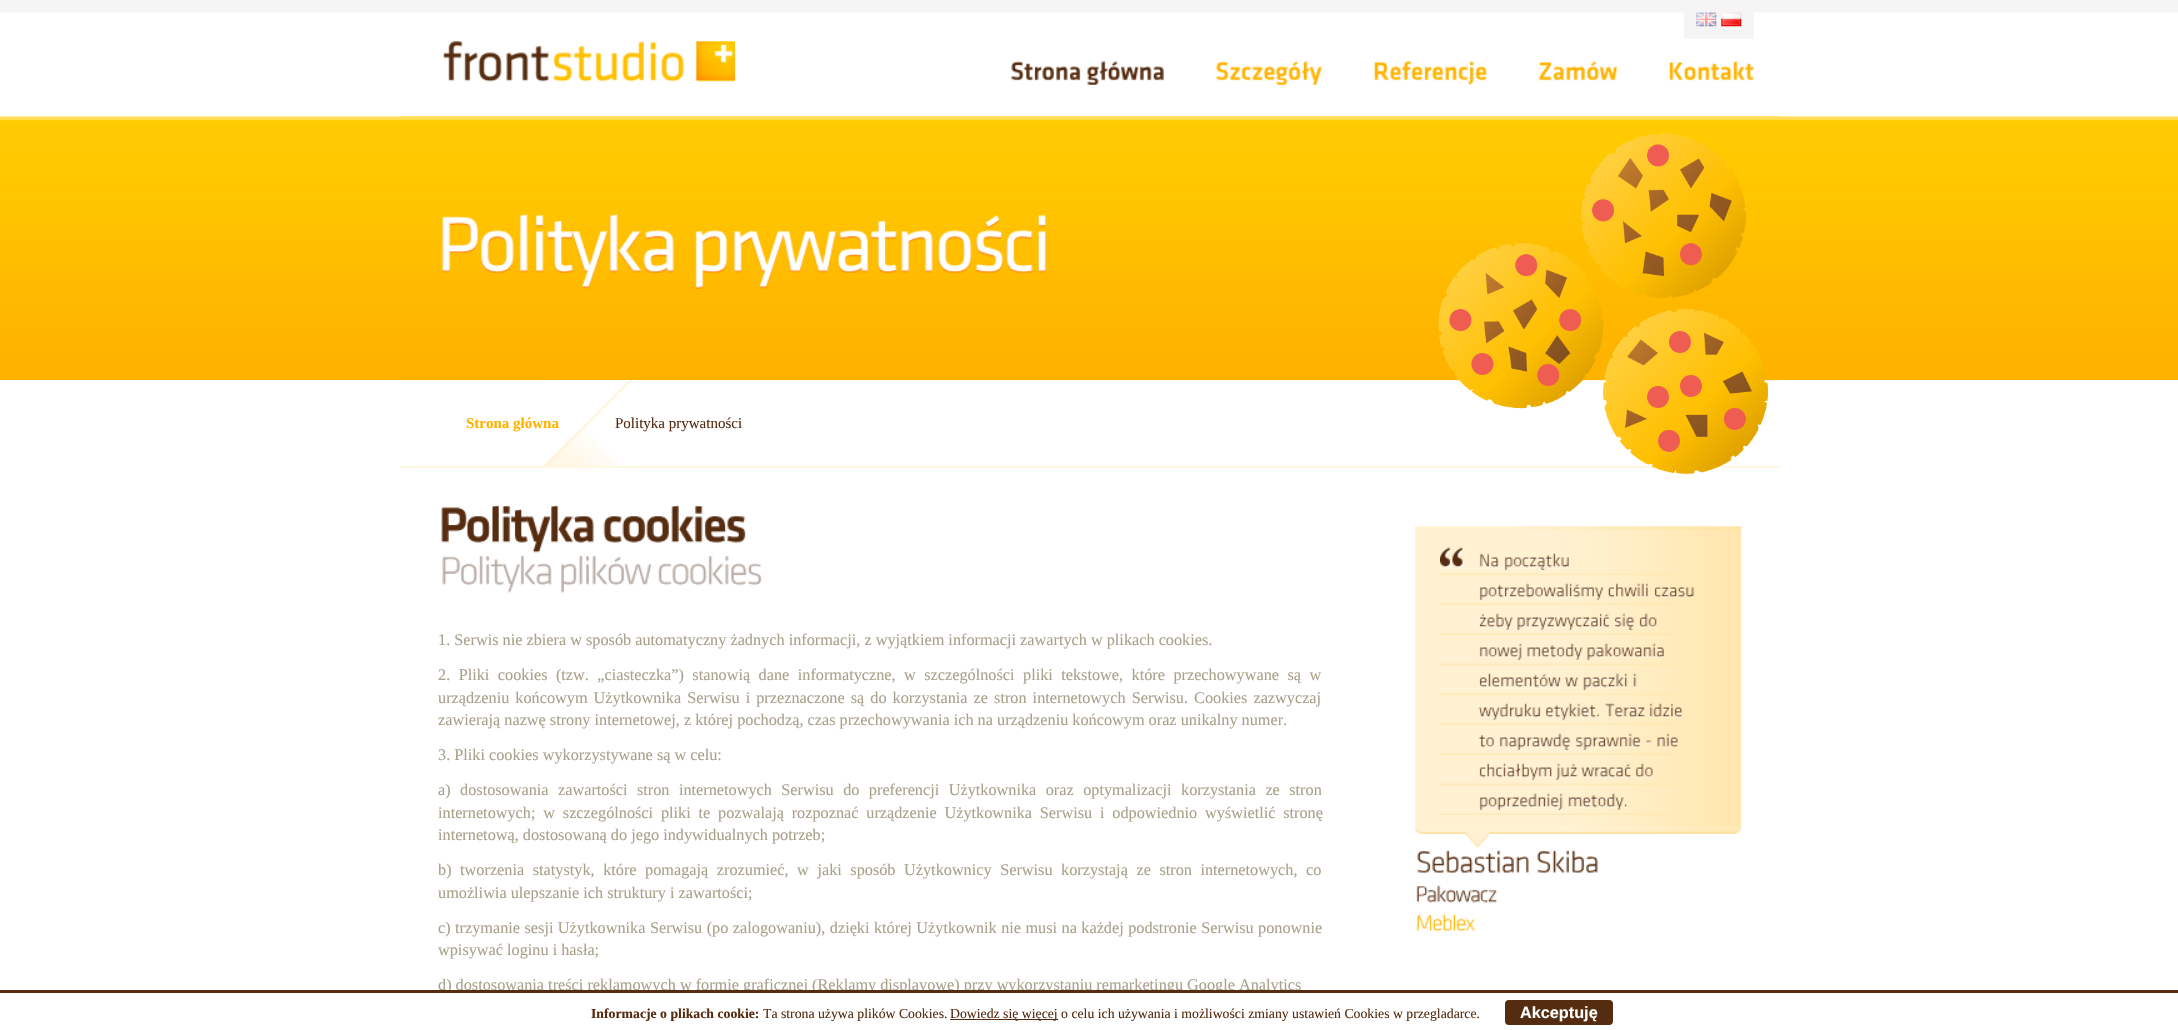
#include "include/core/SkBlurTypes.h"
#include "include/core/SkCanvas.h"
#include "include/core/SkData.h"
#include "include/core/SkFont.h"
#include "include/core/SkFontMgr.h"
#include "include/core/SkImage.h"
#include "include/core/SkMaskFilter.h"
#include "include/core/SkPaint.h"
#include "include/core/SkPathBuilder.h"
#include "include/core/SkTextBlob.h"
#include "include/effects/SkDashPathEffect.h"
#include "include/effects/SkGradientShader.h"
#include "include/utils/SkParsePath.h"

extern sk_sp<SkFontMgr> fontMgr;

void draw(SkCanvas* canvas) {
  SkPaint p;
  p.setAntiAlias(true);
  auto spacedText = [&](const char* s, float x, float y, const SkFont& font, const SkPaint& ink, float letter, float word) {
    std::vector<SkGlyphID> glyphs(font.countText(s, strlen(s), SkTextEncoding::kUTF8));
    std::vector<float> xs(glyphs.size());
    font.textToGlyphs(s, strlen(s), SkTextEncoding::kUTF8, glyphs);
    font.getXPos(glyphs, xs, x);
    float extra = 0;
    for (size_t i = 0; i < glyphs.size(); i++) {
      xs[i] += extra;
      extra += letter + word * (glyphs[i] == font.unicharToGlyph(' '));
    }
    canvas->drawTextBlob(SkTextBlob::MakeFromPosHGlyphs(glyphs, xs, y, font), 0, 0, ink);
  };
  canvas->clear(SK_ColorWHITE);
  canvas->drawImageRect(SkImages::DeferredFromEncodedData(SkData::MakeFromFileName("images/1.png")), SkRect::MakeLTRB(0, 0, 2178, 380), SkSamplingOptions());
  p.setColor(SkColorSetRGB(245, 245, 245));
  canvas->drawRect(SkRect::MakeLTRB(1684, 12, 1754, 39), p);
  canvas->drawImageRect(SkImages::DeferredFromEncodedData(SkData::MakeFromFileName("images/2.png")), SkRect::MakeLTRB(1696, 12, 1717, 27), SkSamplingOptions());
  canvas->drawImageRect(SkImages::DeferredFromEncodedData(SkData::MakeFromFileName("images/3.png")), SkRect::MakeLTRB(1721, 12, 1742, 27), SkSamplingOptions());
  canvas->drawImageRect(SkImages::DeferredFromEncodedData(SkData::MakeFromFileName("images/4.png")), SkRect::MakeLTRB(443, 41, 736, 82), SkSamplingOptions());
  canvas->drawImageRect(SkImages::DeferredFromEncodedData(SkData::MakeFromFileName("images/5.png")), SkRect::MakeLTRB(1011, 61, 1081, 81), SkSamplingOptions());
  canvas->drawImageRect(SkImages::DeferredFromEncodedData(SkData::MakeFromFileName("images/6.png")), SkRect::MakeLTRB(1087, 61, 1164, 85), SkSamplingOptions());
  canvas->drawImageRect(SkImages::DeferredFromEncodedData(SkData::MakeFromFileName("images/7.png")), SkRect::MakeLTRB(1216, 61, 1323, 85), SkSamplingOptions());
  canvas->drawImageRect(SkImages::DeferredFromEncodedData(SkData::MakeFromFileName("images/8.png")), SkRect::MakeLTRB(1373, 61, 1487, 85), SkSamplingOptions());
  canvas->drawImageRect(SkImages::DeferredFromEncodedData(SkData::MakeFromFileName("images/9.png")), SkRect::MakeLTRB(1538, 61, 1618, 81), SkSamplingOptions());
  canvas->drawImageRect(SkImages::DeferredFromEncodedData(SkData::MakeFromFileName("images/10.png")), SkRect::MakeLTRB(1668, 61, 1754, 81), SkSamplingOptions());
  canvas->drawImageRect(SkImages::DeferredFromEncodedData(SkData::MakeFromFileName("images/11.png")), SkRect::MakeLTRB(401, 116, 1779, 468), SkSamplingOptions());
  canvas->drawImageRect(SkImages::DeferredFromEncodedData(SkData::MakeFromFileName("images/12.png")), SkRect::MakeLTRB(442, 213, 674, 289), SkSamplingOptions());
  canvas->drawImageRect(SkImages::DeferredFromEncodedData(SkData::MakeFromFileName("images/13.png")), SkRect::MakeLTRB(695, 214, 1047, 289), SkSamplingOptions());
  canvas->drawImageRect(SkImages::DeferredFromEncodedData(SkData::MakeFromFileName("images/14.png")), SkRect::MakeLTRB(1438, 133, 1768, 474), SkSamplingOptions());
  canvas->drawImageRect(SkImages::DeferredFromEncodedData(SkData::MakeFromFileName("images/15.png")), SkRect::MakeLTRB(543, 380, 590, 467), SkSamplingOptions());
  canvas->drawImageRect(SkImages::DeferredFromEncodedData(SkData::MakeFromFileName("images/16.png")), SkRect::MakeLTRB(590, 380, 637, 467), SkSamplingOptions());
  canvas->drawImageRect(SkImages::DeferredFromEncodedData(SkData::MakeFromFileName("images/17.png")), SkRect::MakeLTRB(441, 505, 594, 553), SkSamplingOptions());
  canvas->drawImageRect(SkImages::DeferredFromEncodedData(SkData::MakeFromFileName("images/18.png")), SkRect::MakeLTRB(603, 505, 746, 543), SkSamplingOptions());
  canvas->drawImageRect(SkImages::DeferredFromEncodedData(SkData::MakeFromFileName("images/19.png")), SkRect::MakeLTRB(442, 555, 552, 593), SkSamplingOptions());
  canvas->drawImageRect(SkImages::DeferredFromEncodedData(SkData::MakeFromFileName("images/20.png")), SkRect::MakeLTRB(561, 555, 652, 593), SkSamplingOptions());
  canvas->drawImageRect(SkImages::DeferredFromEncodedData(SkData::MakeFromFileName("images/21.png")), SkRect::MakeLTRB(658, 555, 762, 586), SkSamplingOptions());
  canvas->drawImageRect(SkImages::DeferredFromEncodedData(SkData::MakeFromFileName("images/22.png")), SkRect::MakeLTRB(1415, 526, 1742, 530), SkSamplingOptions());
  canvas->drawImageRect(SkImages::DeferredFromEncodedData(SkData::MakeFromFileName("images/23.png")), SkRect::MakeLTRB(1415, 530, 1742, 828), SkSamplingOptions());
  canvas->drawImageRect(SkImages::DeferredFromEncodedData(SkData::MakeFromFileName("images/24.png")), SkRect::MakeLTRB(1438, 573, 1700, 815), SkSamplingOptions());
  canvas->drawImageRect(SkImages::DeferredFromEncodedData(SkData::MakeFromFileName("images/25.png")), SkRect::MakeLTRB(1440, 547, 1464, 568), SkSamplingOptions());
  canvas->drawImageRect(SkImages::DeferredFromEncodedData(SkData::MakeFromFileName("images/26.png")), SkRect::MakeLTRB(1479, 553, 1499, 569), SkSamplingOptions());
  canvas->drawImageRect(SkImages::DeferredFromEncodedData(SkData::MakeFromFileName("images/27.png")), SkRect::MakeLTRB(1504, 553, 1569, 572), SkSamplingOptions());
  canvas->drawImageRect(SkImages::DeferredFromEncodedData(SkData::MakeFromFileName("images/28.png")), SkRect::MakeLTRB(1479, 583, 1604, 602), SkSamplingOptions());
  canvas->drawImageRect(SkImages::DeferredFromEncodedData(SkData::MakeFromFileName("images/29.png")), SkRect::MakeLTRB(1608, 583, 1648, 599), SkSamplingOptions());
  canvas->drawImageRect(SkImages::DeferredFromEncodedData(SkData::MakeFromFileName("images/30.png")), SkRect::MakeLTRB(1654, 587, 1694, 599), SkSamplingOptions());
  canvas->drawImageRect(SkImages::DeferredFromEncodedData(SkData::MakeFromFileName("images/31.png")), SkRect::MakeLTRB(1479, 613, 1513, 631), SkSamplingOptions());
  canvas->drawImageRect(SkImages::DeferredFromEncodedData(SkData::MakeFromFileName("images/32.png")), SkRect::MakeLTRB(1517, 613, 1610, 632), SkSamplingOptions());
  canvas->drawImageRect(SkImages::DeferredFromEncodedData(SkData::MakeFromFileName("images/33.png")), SkRect::MakeLTRB(1614, 613, 1634, 632), SkSamplingOptions());
  canvas->drawImageRect(SkImages::DeferredFromEncodedData(SkData::MakeFromFileName("images/34.png")), SkRect::MakeLTRB(1639, 613, 1657, 629), SkSamplingOptions());
  canvas->drawImageRect(SkImages::DeferredFromEncodedData(SkData::MakeFromFileName("images/35.png")), SkRect::MakeLTRB(1479, 643, 1522, 662), SkSamplingOptions());
  canvas->drawImageRect(SkImages::DeferredFromEncodedData(SkData::MakeFromFileName("images/36.png")), SkRect::MakeLTRB(1527, 643, 1583, 661), SkSamplingOptions());
  canvas->drawImageRect(SkImages::DeferredFromEncodedData(SkData::MakeFromFileName("images/37.png")), SkRect::MakeLTRB(1587, 643, 1664, 662), SkSamplingOptions());
  canvas->drawImageRect(SkImages::DeferredFromEncodedData(SkData::MakeFromFileName("images/38.png")), SkRect::MakeLTRB(1479, 673, 1561, 689), SkSamplingOptions());
  canvas->drawImageRect(SkImages::DeferredFromEncodedData(SkData::MakeFromFileName("images/39.png")), SkRect::MakeLTRB(1565, 677, 1578, 688), SkSamplingOptions());
  canvas->drawImageRect(SkImages::DeferredFromEncodedData(SkData::MakeFromFileName("images/40.png")), SkRect::MakeLTRB(1583, 673, 1628, 692), SkSamplingOptions());
  canvas->drawImageRect(SkImages::DeferredFromEncodedData(SkData::MakeFromFileName("images/41.png")), SkRect::MakeLTRB(1633, 673, 1637, 688), SkSamplingOptions());
  canvas->drawImageRect(SkImages::DeferredFromEncodedData(SkData::MakeFromFileName("images/42.png")), SkRect::MakeLTRB(1478, 703, 1541, 722), SkSamplingOptions());
  canvas->drawImageRect(SkImages::DeferredFromEncodedData(SkData::MakeFromFileName("images/43.png")), SkRect::MakeLTRB(1546, 703, 1599, 722), SkSamplingOptions());
  canvas->drawImageRect(SkImages::DeferredFromEncodedData(SkData::MakeFromFileName("images/44.png")), SkRect::MakeLTRB(1605, 703, 1646, 719), SkSamplingOptions());
  canvas->drawImageRect(SkImages::DeferredFromEncodedData(SkData::MakeFromFileName("images/45.png")), SkRect::MakeLTRB(1649, 703, 1683, 719), SkSamplingOptions());
  canvas->drawImageRect(SkImages::DeferredFromEncodedData(SkData::MakeFromFileName("images/46.png")), SkRect::MakeLTRB(1478, 735, 1494, 749), SkSamplingOptions());
  canvas->drawImageRect(SkImages::DeferredFromEncodedData(SkData::MakeFromFileName("images/47.png")), SkRect::MakeLTRB(1499, 733, 1571, 752), SkSamplingOptions());
  canvas->drawImageRect(SkImages::DeferredFromEncodedData(SkData::MakeFromFileName("images/48.png")), SkRect::MakeLTRB(1576, 733, 1641, 752), SkSamplingOptions());
  canvas->drawImageRect(SkImages::DeferredFromEncodedData(SkData::MakeFromFileName("images/49.png")), SkRect::MakeLTRB(1646, 740, 1652, 744), SkSamplingOptions());
  canvas->drawImageRect(SkImages::DeferredFromEncodedData(SkData::MakeFromFileName("images/50.png")), SkRect::MakeLTRB(1657, 733, 1678, 749), SkSamplingOptions());
  canvas->drawImageRect(SkImages::DeferredFromEncodedData(SkData::MakeFromFileName("images/51.png")), SkRect::MakeLTRB(1479, 763, 1552, 782), SkSamplingOptions());
  canvas->drawImageRect(SkImages::DeferredFromEncodedData(SkData::MakeFromFileName("images/52.png")), SkRect::MakeLTRB(1556, 763, 1578, 782), SkSamplingOptions());
  canvas->drawImageRect(SkImages::DeferredFromEncodedData(SkData::MakeFromFileName("images/53.png")), SkRect::MakeLTRB(1581, 763, 1632, 779), SkSamplingOptions());
  canvas->drawImageRect(SkImages::DeferredFromEncodedData(SkData::MakeFromFileName("images/54.png")), SkRect::MakeLTRB(1636, 763, 1653, 779), SkSamplingOptions());
  canvas->drawImageRect(SkImages::DeferredFromEncodedData(SkData::MakeFromFileName("images/55.png")), SkRect::MakeLTRB(1479, 793, 1563, 812), SkSamplingOptions());
  canvas->drawImageRect(SkImages::DeferredFromEncodedData(SkData::MakeFromFileName("images/56.png")), SkRect::MakeLTRB(1568, 793, 1627, 812), SkSamplingOptions());
  canvas->drawImageRect(SkImages::DeferredFromEncodedData(SkData::MakeFromFileName("images/57.png")), SkRect::MakeLTRB(1415, 827, 1742, 848), SkSamplingOptions());
  canvas->drawImageRect(SkImages::DeferredFromEncodedData(SkData::MakeFromFileName("images/58.png")), SkRect::MakeLTRB(1417, 850, 1529, 873), SkSamplingOptions());
  canvas->drawImageRect(SkImages::DeferredFromEncodedData(SkData::MakeFromFileName("images/59.png")), SkRect::MakeLTRB(1537, 850, 1598, 873), SkSamplingOptions());
  canvas->drawImageRect(SkImages::DeferredFromEncodedData(SkData::MakeFromFileName("images/60.png")), SkRect::MakeLTRB(1416, 885, 1497, 903), SkSamplingOptions());
  canvas->drawImageRect(SkImages::DeferredFromEncodedData(SkData::MakeFromFileName("images/61.png")), SkRect::MakeLTRB(1416, 913, 1476, 932), SkSamplingOptions());
  p.setColor(SkColorSetRGB(86, 44, 16));
  canvas->drawRect(SkRect::MakeLTRB(950, 1019, 1058, 1020), p);
  canvas->drawRoundRect(SkRect::MakeLTRB(1505, 1000, 1613, 1025), 4, 4, p);
  SkFont font1(fontMgr->matchFamilyStyle("Liberation Serif", SkFontStyle::Bold()), 15);
  font1.setSubpixel(true);
  p.setColor(SkColorSetRGB(255, 178, 0));
  canvas->drawString("Strona główna", 466, 428, font1, p);
  SkFont font2(fontMgr->matchFamilyStyle("Liberation Serif", SkFontStyle::Normal()), 15);
  font2.setSubpixel(true);
  p.setColor(SkColorSetRGB(86, 44, 16));
  canvas->drawString("Polityka prywatności", 615, 428, font2, p);
  SkFont font3(fontMgr->matchFamilyStyle("Liberation Serif", SkFontStyle::Normal()), 16.25f);
  font3.setSubpixel(true);
  p.setColor(SkColorSetRGB(168, 161, 140));
  canvas->drawString("1. Serwis nie zbiera w sposób automatyczny żadnych informacji, z wyjątkiem informacji zawartych w plikach cookies.", 438, 645, font3, p);
  spacedText("2. Pliki cookies (tzw. „ciasteczka”) stanowią dane informatyczne, w szczególności pliki tekstowe, które przechowywane są w", 438, 680, font3, p, 0, 4.4f);
  spacedText("urządzeniu końcowym Użytkownika Serwisu i przeznaczone są do korzystania ze stron internetowych Serwisu. Cookies zazwyczaj", 438, 703, font3, p, 0, 2);
  canvas->drawString("zawierają nazwę strony internetowej, z której pochodzą, czas przechowywania ich na urządzeniu końcowym oraz unikalny numer.", 438, 725, font3, p);
  canvas->drawString("3. Pliki cookies wykorzystywane są w celu:", 438, 760, font3, p);
  spacedText("a) dostosowania zawartości stron internetowych Serwisu do preferencji Użytkownika oraz optymalizacji korzystania ze stron", 438, 795, font3, p, 0, 5.4f);
  spacedText("internetowych; w szczególności pliki te pozwalają rozpoznać urządzenie Użytkownika Serwisu i odpowiednio wyświetlić stronę", 438, 818, font3, p, 0, 3.75f);
  canvas->drawString("internetową, dostosowaną do jego indywidualnych potrzeb;", 438, 840, font3, p);
  spacedText("b) tworzenia statystyk, które pomagają zrozumieć, w jaki sposób Użytkownicy Serwisu korzystają ze stron internetowych, co", 438, 875, font3, p, 0, 4.5f);
  canvas->drawString("umożliwia ulepszanie ich struktury i zawartości;", 438, 898, font3, p);
  spacedText("c) trzymanie sesji Użytkownika Serwisu (po zalogowaniu), dzięki której Użytkownik nie musi na każdej podstronie Serwisu ponownie", 438, 933, font3, p, 0, 0.4f);
  canvas->drawString("wpisywać loginu i hasła;", 438, 955, font3, p);
  canvas->drawString("d) dostosowania treści reklamowych w formie graficznej (Reklamy displayowe) przy wykorzystaniu remarketingu Google Analytics", 438, 990, font3, p);
  p.setColor(SK_ColorWHITE);
  canvas->drawRect(SkRect::MakeLTRB(446, 993, 1274, 994), p);
  p.setColor(SkColorSetRGB(86, 44, 16));
  canvas->drawRect(SkRect::MakeLTRB(0, 990, 2178, 993), p);
  SkFont font4(fontMgr->matchFamilyStyle("Liberation Serif", SkFontStyle::Bold()), 13.75f);
  font4.setSubpixel(true);
  canvas->drawString("Informacje o plikach cookie:", 591, 1018, font4, p);
  SkFont font5(fontMgr->matchFamilyStyle("Liberation Serif", SkFontStyle::Normal()), 13.75f);
  font5.setSubpixel(true);
  canvas->drawString("Ta strona używa plików Cookies.", 763, 1018, font5, p);
  canvas->drawString("Dowiedz się więcej o celu ich używania i możliwości zmiany ustawień Cookies w przegladarce.", 950, 1018, font5, p);
  SkFont font6(fontMgr->matchFamilyStyle("Liberation Sans", SkFontStyle::Bold()), 16.25f);
  font6.setSubpixel(true);
  p.setColor(SK_ColorWHITE);
  canvas->drawString("Akceptuję", 1520, 1018, font6, p);
}
